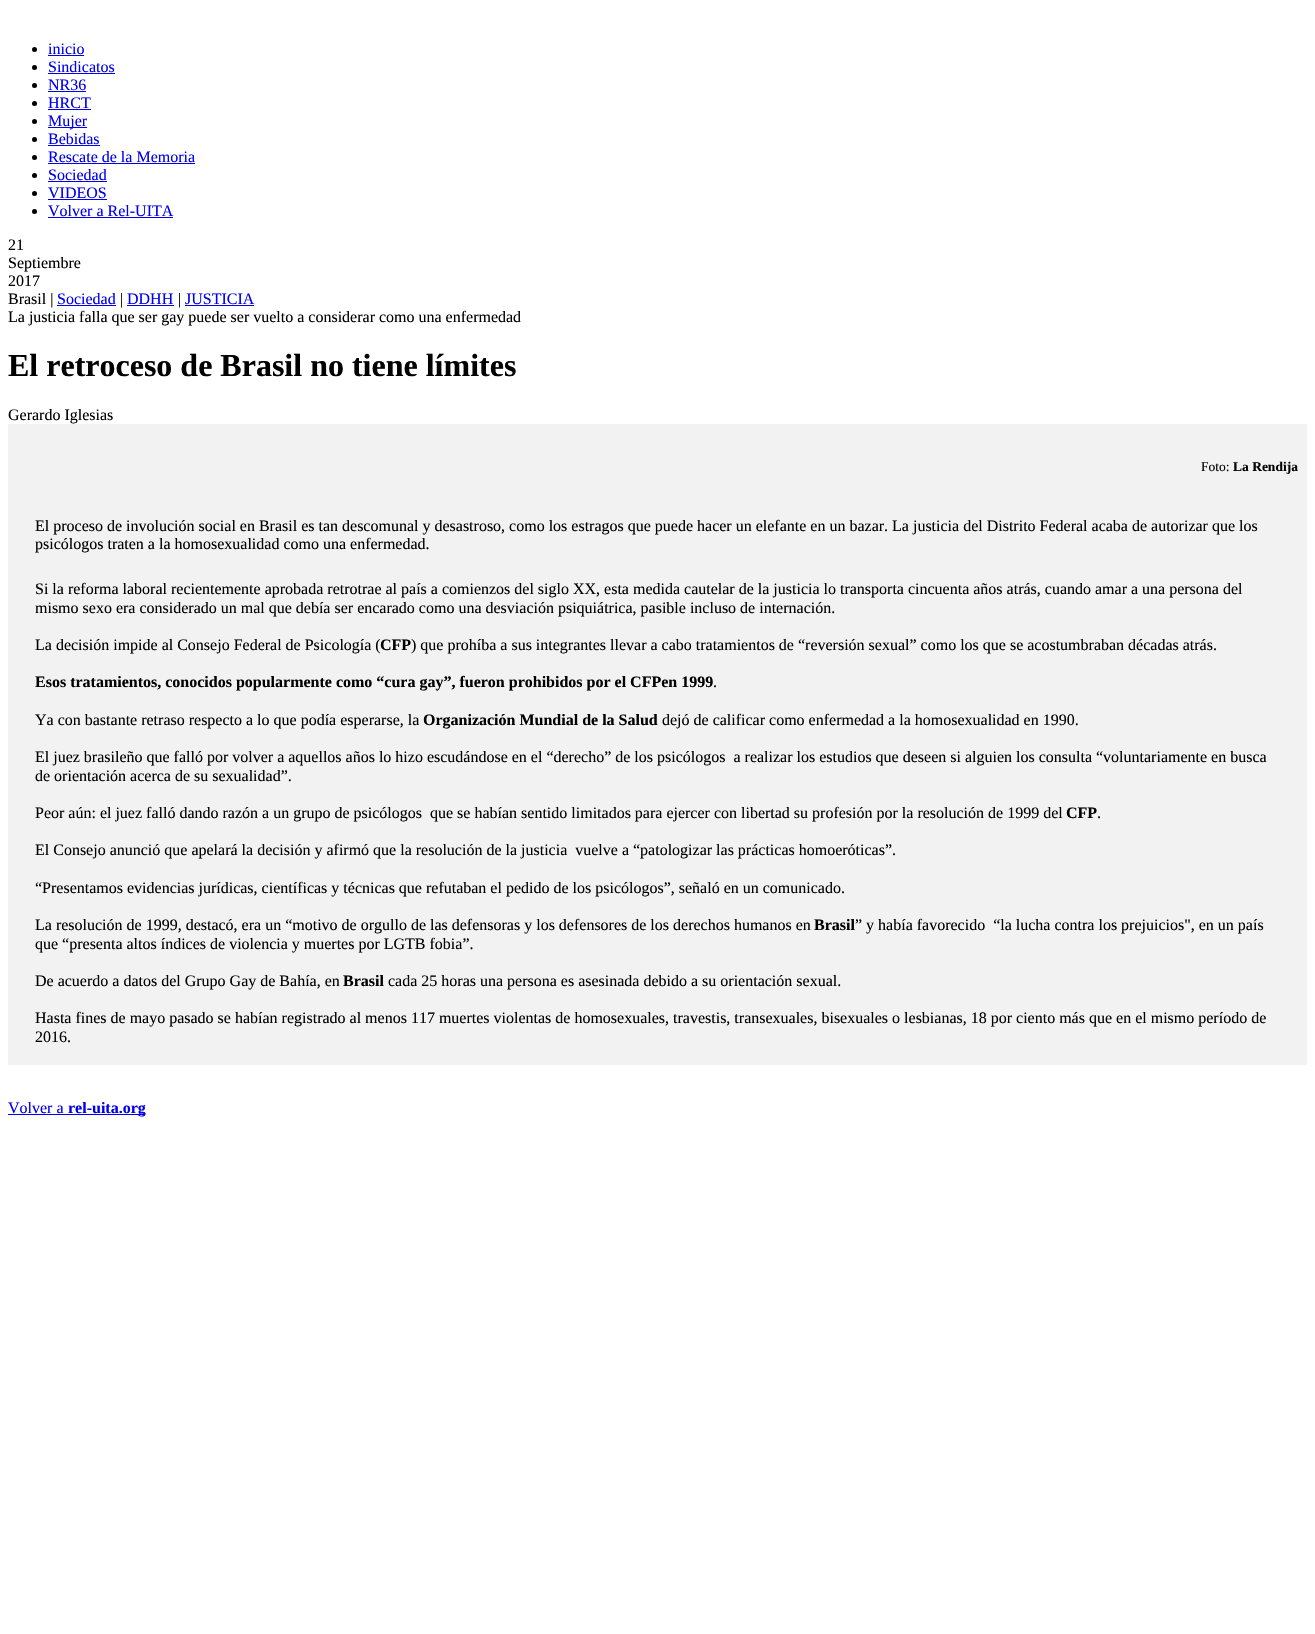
#include "include/core/SkBlurTypes.h"
#include "include/core/SkCanvas.h"
#include "include/core/SkData.h"
#include "include/core/SkFont.h"
#include "include/core/SkFontMgr.h"
#include "include/core/SkImage.h"
#include "include/core/SkMaskFilter.h"
#include "include/core/SkPaint.h"
#include "include/core/SkPathBuilder.h"
#include "include/core/SkTextBlob.h"
#include "include/effects/SkDashPathEffect.h"
#include "include/effects/SkGradientShader.h"
#include "include/utils/SkParsePath.h"

extern sk_sp<SkFontMgr> fontMgr;

void draw(SkCanvas* canvas) {
  SkPaint p;
  p.setAntiAlias(true);
  canvas->clear(SK_ColorWHITE);
  p.setColor(SK_ColorBLACK);
  canvas->drawCircle(34.5f, 49.5f, 2.5f, p);
  p.setColor(SkColorSetRGB(0, 0, 238));
  canvas->drawRect(SkRect::MakeLTRB(48, 55, 84, 56), p);
  p.setColor(SK_ColorBLACK);
  canvas->drawCircle(34.5f, 67.5f, 2.5f, p);
  p.setColor(SkColorSetRGB(0, 0, 238));
  canvas->drawRect(SkRect::MakeLTRB(48, 73, 115, 74), p);
  p.setColor(SK_ColorBLACK);
  canvas->drawCircle(34.5f, 85.5f, 2.5f, p);
  p.setColor(SkColorSetRGB(0, 0, 238));
  canvas->drawRect(SkRect::MakeLTRB(48, 91, 86, 92), p);
  p.setColor(SK_ColorBLACK);
  canvas->drawCircle(34.5f, 103.5f, 2.5f, p);
  p.setColor(SkColorSetRGB(0, 0, 238));
  canvas->drawRect(SkRect::MakeLTRB(48, 109, 91, 110), p);
  p.setColor(SK_ColorBLACK);
  canvas->drawCircle(34.5f, 121.5f, 2.5f, p);
  p.setColor(SkColorSetRGB(0, 0, 238));
  canvas->drawRect(SkRect::MakeLTRB(48, 127, 87, 128), p);
  p.setColor(SK_ColorBLACK);
  canvas->drawCircle(34.5f, 139.5f, 2.5f, p);
  p.setColor(SkColorSetRGB(0, 0, 238));
  canvas->drawRect(SkRect::MakeLTRB(48, 145, 100, 146), p);
  p.setColor(SK_ColorBLACK);
  canvas->drawCircle(34.5f, 157.5f, 2.5f, p);
  p.setColor(SkColorSetRGB(0, 0, 238));
  canvas->drawRect(SkRect::MakeLTRB(48, 163, 195, 164), p);
  p.setColor(SK_ColorBLACK);
  canvas->drawCircle(34.5f, 175.5f, 2.5f, p);
  p.setColor(SkColorSetRGB(0, 0, 238));
  canvas->drawRect(SkRect::MakeLTRB(48, 181, 107, 182), p);
  p.setColor(SK_ColorBLACK);
  canvas->drawCircle(34.5f, 193.5f, 2.5f, p);
  p.setColor(SkColorSetRGB(0, 0, 238));
  canvas->drawRect(SkRect::MakeLTRB(48, 199, 107, 200), p);
  p.setColor(SK_ColorBLACK);
  canvas->drawCircle(34.5f, 211.5f, 2.5f, p);
  p.setColor(SkColorSetRGB(0, 0, 238));
  canvas->drawRect(SkRect::MakeLTRB(48, 217, 173, 218), p);
  canvas->drawRect(SkRect::MakeLTRB(57, 305, 116, 306), p);
  canvas->drawRect(SkRect::MakeLTRB(127, 305, 174, 306), p);
  canvas->drawRect(SkRect::MakeLTRB(185, 305, 254, 306), p);
  p.setColor(SkColorSetRGB(242, 242, 242));
  canvas->drawRect(SkRect::MakeLTRB(8, 424, 1307, 1065), p);
  p.setColor(SkColorSetRGB(0, 0, 238));
  canvas->drawRect(SkRect::MakeLTRB(8, 1114, 145, 1115), p);
  SkFont font1(fontMgr->matchFamilyStyle("Liberation Serif", SkFontStyle::Normal()), 16);
  font1.setSubpixel(true);
  canvas->drawString("inicio", 48, 54, font1, p);
  canvas->drawString("Sindicatos", 48, 72, font1, p);
  canvas->drawString("NR36", 48, 90, font1, p);
  canvas->drawString("HRCT", 48, 108, font1, p);
  canvas->drawString("Mujer", 48, 126, font1, p);
  canvas->drawString("Bebidas", 48, 144, font1, p);
  canvas->drawString("Rescate de la Memoria", 48, 162, font1, p);
  canvas->drawString("Sociedad", 48, 180, font1, p);
  canvas->drawString("VIDEOS", 48, 198, font1, p);
  canvas->drawString("Volver a Rel-UITA", 48, 216, font1, p);
  p.setColor(SK_ColorBLACK);
  canvas->drawString("21", 8, 250, font1, p);
  canvas->drawString("Septiembre", 8, 268, font1, p);
  canvas->drawString("2017", 8, 286, font1, p);
  canvas->drawString("Brasil |", 8, 304, font1, p);
  p.setColor(SkColorSetRGB(0, 0, 238));
  canvas->drawString("Sociedad", 57, 304, font1, p);
  p.setColor(SK_ColorBLACK);
  canvas->drawString("|", 120, 304, font1, p);
  p.setColor(SkColorSetRGB(0, 0, 238));
  canvas->drawString("DDHH", 127, 304, font1, p);
  p.setColor(SK_ColorBLACK);
  canvas->drawString("|", 178, 304, font1, p);
  p.setColor(SkColorSetRGB(0, 0, 238));
  canvas->drawString("JUSTICIA", 185, 304, font1, p);
  p.setColor(SK_ColorBLACK);
  canvas->drawString("La justicia falla que ser gay puede ser vuelto a considerar como una enfermedad", 8, 322, font1, p);
  SkFont font2(fontMgr->matchFamilyStyle("Liberation Serif", SkFontStyle::Bold()), 32);
  font2.setSubpixel(true);
  canvas->drawString("El retroceso de Brasil no tiene límites", 8, 376, font2, p);
  canvas->drawString("Gerardo Iglesias", 8, 420, font1, p);
  SkFont font3(fontMgr->matchFamilyStyle("Liberation Serif", SkFontStyle::Normal()), 13.5f);
  font3.setSubpixel(true);
  canvas->drawString("Foto:", 1201, 471, font3, p);
  SkFont font4(fontMgr->matchFamilyStyle("Liberation Serif", SkFontStyle::Bold()), 13.5f);
  font4.setSubpixel(true);
  canvas->drawString("La Rendija", 1233, 471, font4, p);
  canvas->drawString("El proceso de involución social en Brasil es tan descomunal y desastroso, como los estragos que puede hacer un elefante en un bazar. La justicia del Distrito Federal acaba de autorizar que los", 35, 531, font1, p);
  canvas->drawString("psicólogos traten a la homosexualidad como una enfermedad.", 35, 549, font1, p);
  canvas->drawString("Si la reforma laboral recientemente aprobada retrotrae al país a comienzos del siglo XX, esta medida cautelar de la justicia lo transporta cincuenta años atrás, cuando amar a una persona del", 35, 594, font1, p);
  canvas->drawString("mismo sexo era considerado un mal que debía ser encarado como una desviación psiquiátrica, pasible incluso de internación.", 35, 613, font1, p);
  canvas->drawString("La decisión impide al Consejo Federal de Psicología (", 35, 650, font1, p);
  SkFont font5(fontMgr->matchFamilyStyle("Liberation Serif", SkFontStyle::Bold()), 16);
  font5.setSubpixel(true);
  canvas->drawString("CFP", 380, 650, font5, p);
  canvas->drawString(") que prohíba a sus integrantes llevar a cabo tratamientos de “reversión sexual” como los que se acostumbraban décadas atrás.", 411, 650, font1, p);
  canvas->drawString("Esos tratamientos, conocidos popularmente como “cura gay”, fueron prohibidos por el CFPen 1999", 35, 687, font5, p);
  canvas->drawString(".", 713, 687, font1, p);
  canvas->drawString("Ya con bastante retraso respecto a lo que podía esperarse, la", 35, 725, font1, p);
  canvas->drawString("Organización Mundial de la Salud", 423, 725, font5, p);
  canvas->drawString("dejó de calificar como enfermedad a la homosexualidad en 1990.", 662, 725, font1, p);
  canvas->drawString("El juez brasileño que falló por volver a aquellos años lo hizo escudándose en el “derecho” de los psicólogos  a realizar los estudios que deseen si alguien los consulta “voluntariamente en busca", 35, 762, font1, p);
  canvas->drawString("de orientación acerca de su sexualidad”.", 35, 781, font1, p);
  canvas->drawString("Peor aún: el juez falló dando razón a un grupo de psicólogos  que se habían sentido limitados para ejercer con libertad su profesión por la resolución de 1999 del", 35, 818, font1, p);
  canvas->drawString("CFP", 1066, 818, font5, p);
  canvas->drawString(".", 1097, 818, font1, p);
  canvas->drawString("El Consejo anunció que apelará la decisión y afirmó que la resolución de la justicia  vuelve a “patologizar las prácticas homoeróticas”.", 35, 855, font1, p);
  canvas->drawString("“Presentamos evidencias jurídicas, científicas y técnicas que refutaban el pedido de los psicólogos”, señaló en un comunicado.", 35, 893, font1, p);
  canvas->drawString("La resolución de 1999, destacó, era un “motivo de orgullo de las defensoras y los defensores de los derechos humanos en", 35, 930, font1, p);
  canvas->drawString("Brasil", 814, 930, font5, p);
  canvas->drawString("” y había favorecido  “la lucha contra los prejuicios\", en un país", 855, 930, font1, p);
  canvas->drawString("que “presenta altos índices de violencia y muertes por LGTB fobia”.", 35, 949, font1, p);
  canvas->drawString("De acuerdo a datos del Grupo Gay de Bahía, en", 35, 986, font1, p);
  canvas->drawString("Brasil", 343, 986, font5, p);
  canvas->drawString("cada 25 horas una persona es asesinada debido a su orientación sexual.", 388, 986, font1, p);
  canvas->drawString("Hasta fines de mayo pasado se habían registrado al menos 117 muertes violentas de homosexuales, travestis, transexuales, bisexuales o lesbianas, 18 por ciento más que en el mismo período de", 35, 1023, font1, p);
  canvas->drawString("2016.", 35, 1042, font1, p);
  p.setColor(SkColorSetRGB(0, 0, 238));
  canvas->drawString("Volver a", 8, 1113, font1, p);
  canvas->drawString("rel-uita.org", 68, 1113, font5, p);
}
